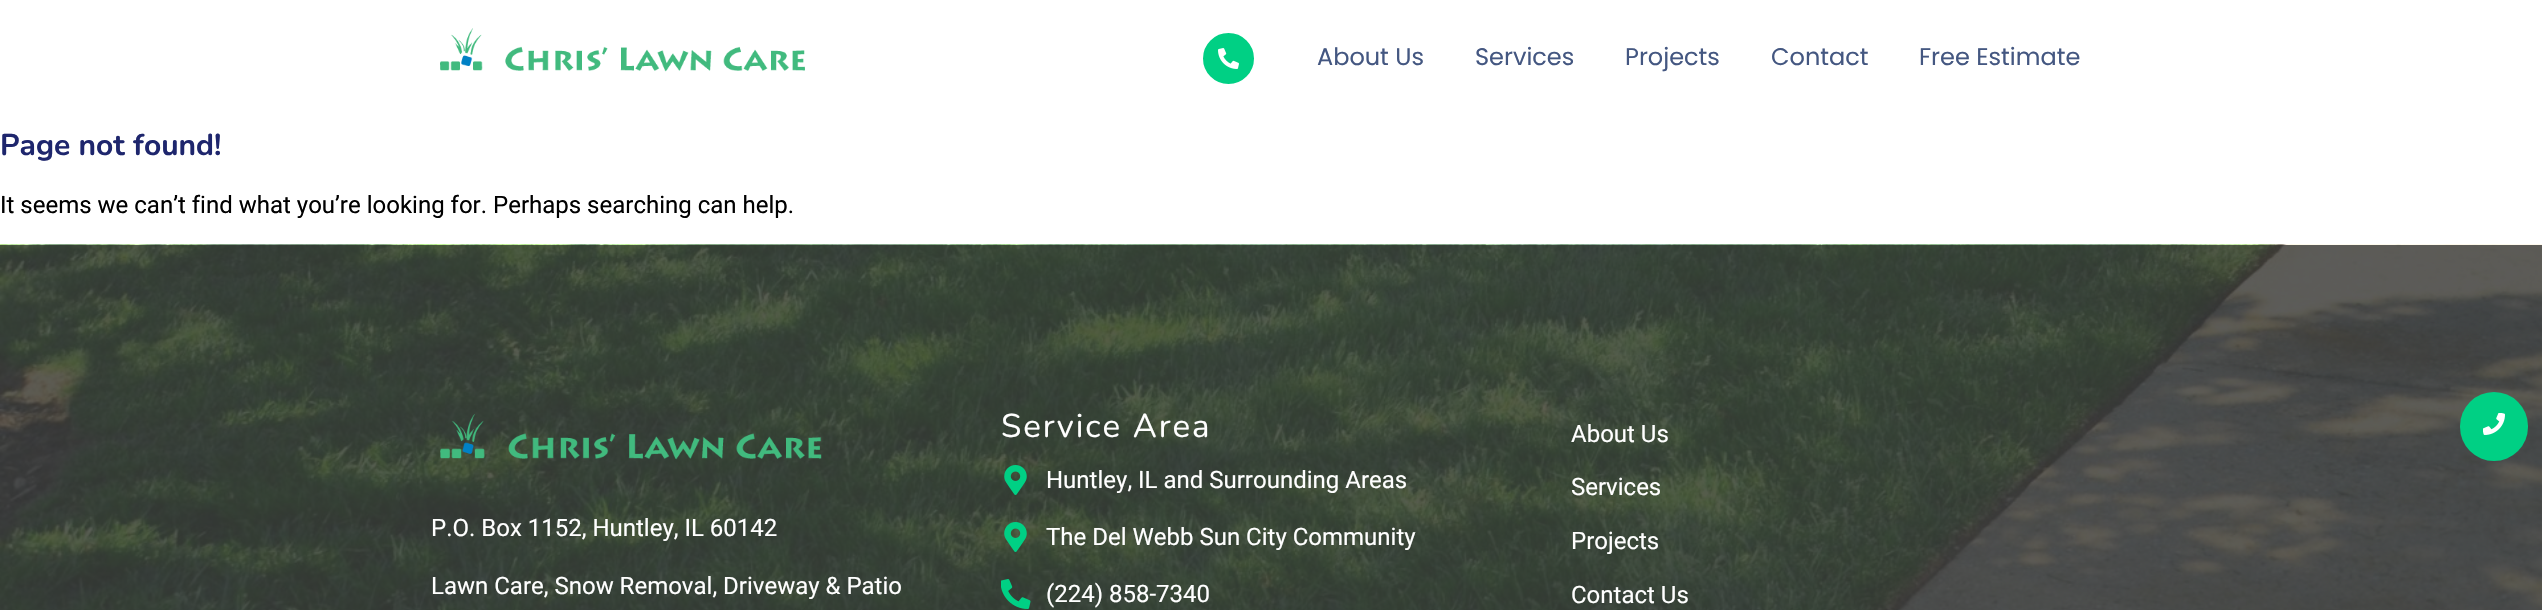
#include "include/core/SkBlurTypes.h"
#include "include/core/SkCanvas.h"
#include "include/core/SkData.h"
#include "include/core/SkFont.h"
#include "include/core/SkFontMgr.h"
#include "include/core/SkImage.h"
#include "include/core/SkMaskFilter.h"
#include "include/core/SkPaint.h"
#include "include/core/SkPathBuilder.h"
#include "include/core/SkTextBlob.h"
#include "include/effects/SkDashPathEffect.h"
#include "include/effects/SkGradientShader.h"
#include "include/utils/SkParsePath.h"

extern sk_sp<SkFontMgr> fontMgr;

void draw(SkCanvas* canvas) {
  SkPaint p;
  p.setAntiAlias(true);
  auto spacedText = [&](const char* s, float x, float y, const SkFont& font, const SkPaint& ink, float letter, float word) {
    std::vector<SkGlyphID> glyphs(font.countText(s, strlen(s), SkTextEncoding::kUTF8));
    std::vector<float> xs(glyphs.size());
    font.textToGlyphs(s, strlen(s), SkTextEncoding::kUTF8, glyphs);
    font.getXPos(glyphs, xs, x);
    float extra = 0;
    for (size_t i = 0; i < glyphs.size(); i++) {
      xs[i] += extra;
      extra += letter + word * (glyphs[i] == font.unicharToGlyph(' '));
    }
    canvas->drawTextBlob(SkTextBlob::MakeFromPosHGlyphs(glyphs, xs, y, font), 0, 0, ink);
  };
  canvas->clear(SK_ColorWHITE);
  canvas->drawImageRect(SkImages::DeferredFromEncodedData(SkData::MakeFromFileName("images/1.png")), SkRect::MakeLTRB(440, 28, 805, 72), SkSamplingOptions());
  p.setColor(SkColorSetRGB(0, 208, 132));
  canvas->drawCircle(1228.5f, 58.5f, 27, p);
  p.setStyle(SkPaint::kStroke_Style);
  p.setStrokeWidth(3);
  p.setColor(SK_ColorWHITE);
  canvas->drawCircle(1228.5f, 58.5f, 27, p);
  canvas->drawImageRect(SkImages::DeferredFromEncodedData(SkData::MakeFromFileName("images/2.png")), SkRect::MakeLTRB(1218, 48, 1239, 69), SkSamplingOptions());
  canvas->drawImageRect(SkImages::DeferredFromEncodedData(SkData::MakeFromFileName("images/3.png")), SkRect::MakeLTRB(0, 244, 2542, 610), SkSamplingOptions());
  canvas->drawImageRect(SkImages::DeferredFromEncodedData(SkData::MakeFromFileName("images/4.png")), SkRect::MakeLTRB(440, 414, 822, 460), SkSamplingOptions());
  canvas->drawImageRect(SkImages::DeferredFromEncodedData(SkData::MakeFromFileName("images/5.png")), SkRect::MakeLTRB(1004, 465, 1027, 495), SkSamplingOptions());
  canvas->drawImageRect(SkImages::DeferredFromEncodedData(SkData::MakeFromFileName("images/6.png")), SkRect::MakeLTRB(1004, 522, 1027, 552), SkSamplingOptions());
  canvas->drawImageRect(SkImages::DeferredFromEncodedData(SkData::MakeFromFileName("images/7.png")), SkRect::MakeLTRB(1001, 579, 1031, 609), SkSamplingOptions());
  p.setStyle(SkPaint::kFill_Style);
  p.setColor(SkColorSetRGB(0, 208, 132));
  canvas->drawRoundRect(SkRect::MakeLTRB(2460, 392, 2528, 461), 34, 34, p);
  canvas->drawImageRect(SkImages::DeferredFromEncodedData(SkData::MakeFromFileName("images/8.png")), SkRect::MakeLTRB(2483, 413, 2505, 435), SkSamplingOptions());
  SkFont font1(fontMgr->matchFamilyStyle("Poppins", SkFontStyle::Normal()), 24);
  font1.setSubpixel(true);
  p.setColor(SkColorSetRGB(68, 87, 129));
  canvas->drawString("About Us", 1317, 65, font1, p);
  canvas->drawString("Services", 1475, 65, font1, p);
  canvas->drawString("Projects", 1625, 65, font1, p);
  canvas->drawString("Contact", 1771, 65, font1, p);
  canvas->drawString("Free Estimate", 1919, 65, font1, p);
  SkFont font2(fontMgr->matchFamilyStyle("Nunito", SkFontStyle::Bold()), 30);
  font2.setSubpixel(true);
  p.setColor(SkColorSetRGB(30, 38, 109));
  canvas->drawString("Page not found!", 0, 155, font2, p);
  SkFont font3(fontMgr->matchFamilyStyle("Roboto", SkFontStyle::Normal()), 24);
  font3.setSubpixel(true);
  p.setColor(SK_ColorBLACK);
  canvas->drawString("It seems we can’t find what you’re looking for. Perhaps searching can help.", 0, 213, font3, p);
  p.setColor(SK_ColorWHITE);
  canvas->drawString("P.O. Box 1152, Huntley, IL 60142", 431, 536, font3, p);
  canvas->drawString("Lawn Care, Snow Removal, Driveway & Patio", 431, 594, font3, p);
  SkFont font4(fontMgr->matchFamilyStyle("Nunito", SkFontStyle::Normal()), 33);
  font4.setSubpixel(true);
  spacedText("Service Area", 1001, 437, font4, p, 2, 0);
  canvas->drawString("Huntley, IL and Surrounding Areas", 1046, 488, font3, p);
  canvas->drawString("The Del Webb Sun City Community", 1046, 545, font3, p);
  canvas->drawString("(224) 858-7340", 1046, 602, font3, p);
  canvas->drawString("About Us", 1571, 442, font3, p);
  canvas->drawString("Services", 1571, 495, font3, p);
  canvas->drawString("Projects", 1571, 549, font3, p);
  canvas->drawString("Contact Us", 1571, 603, font3, p);
}
